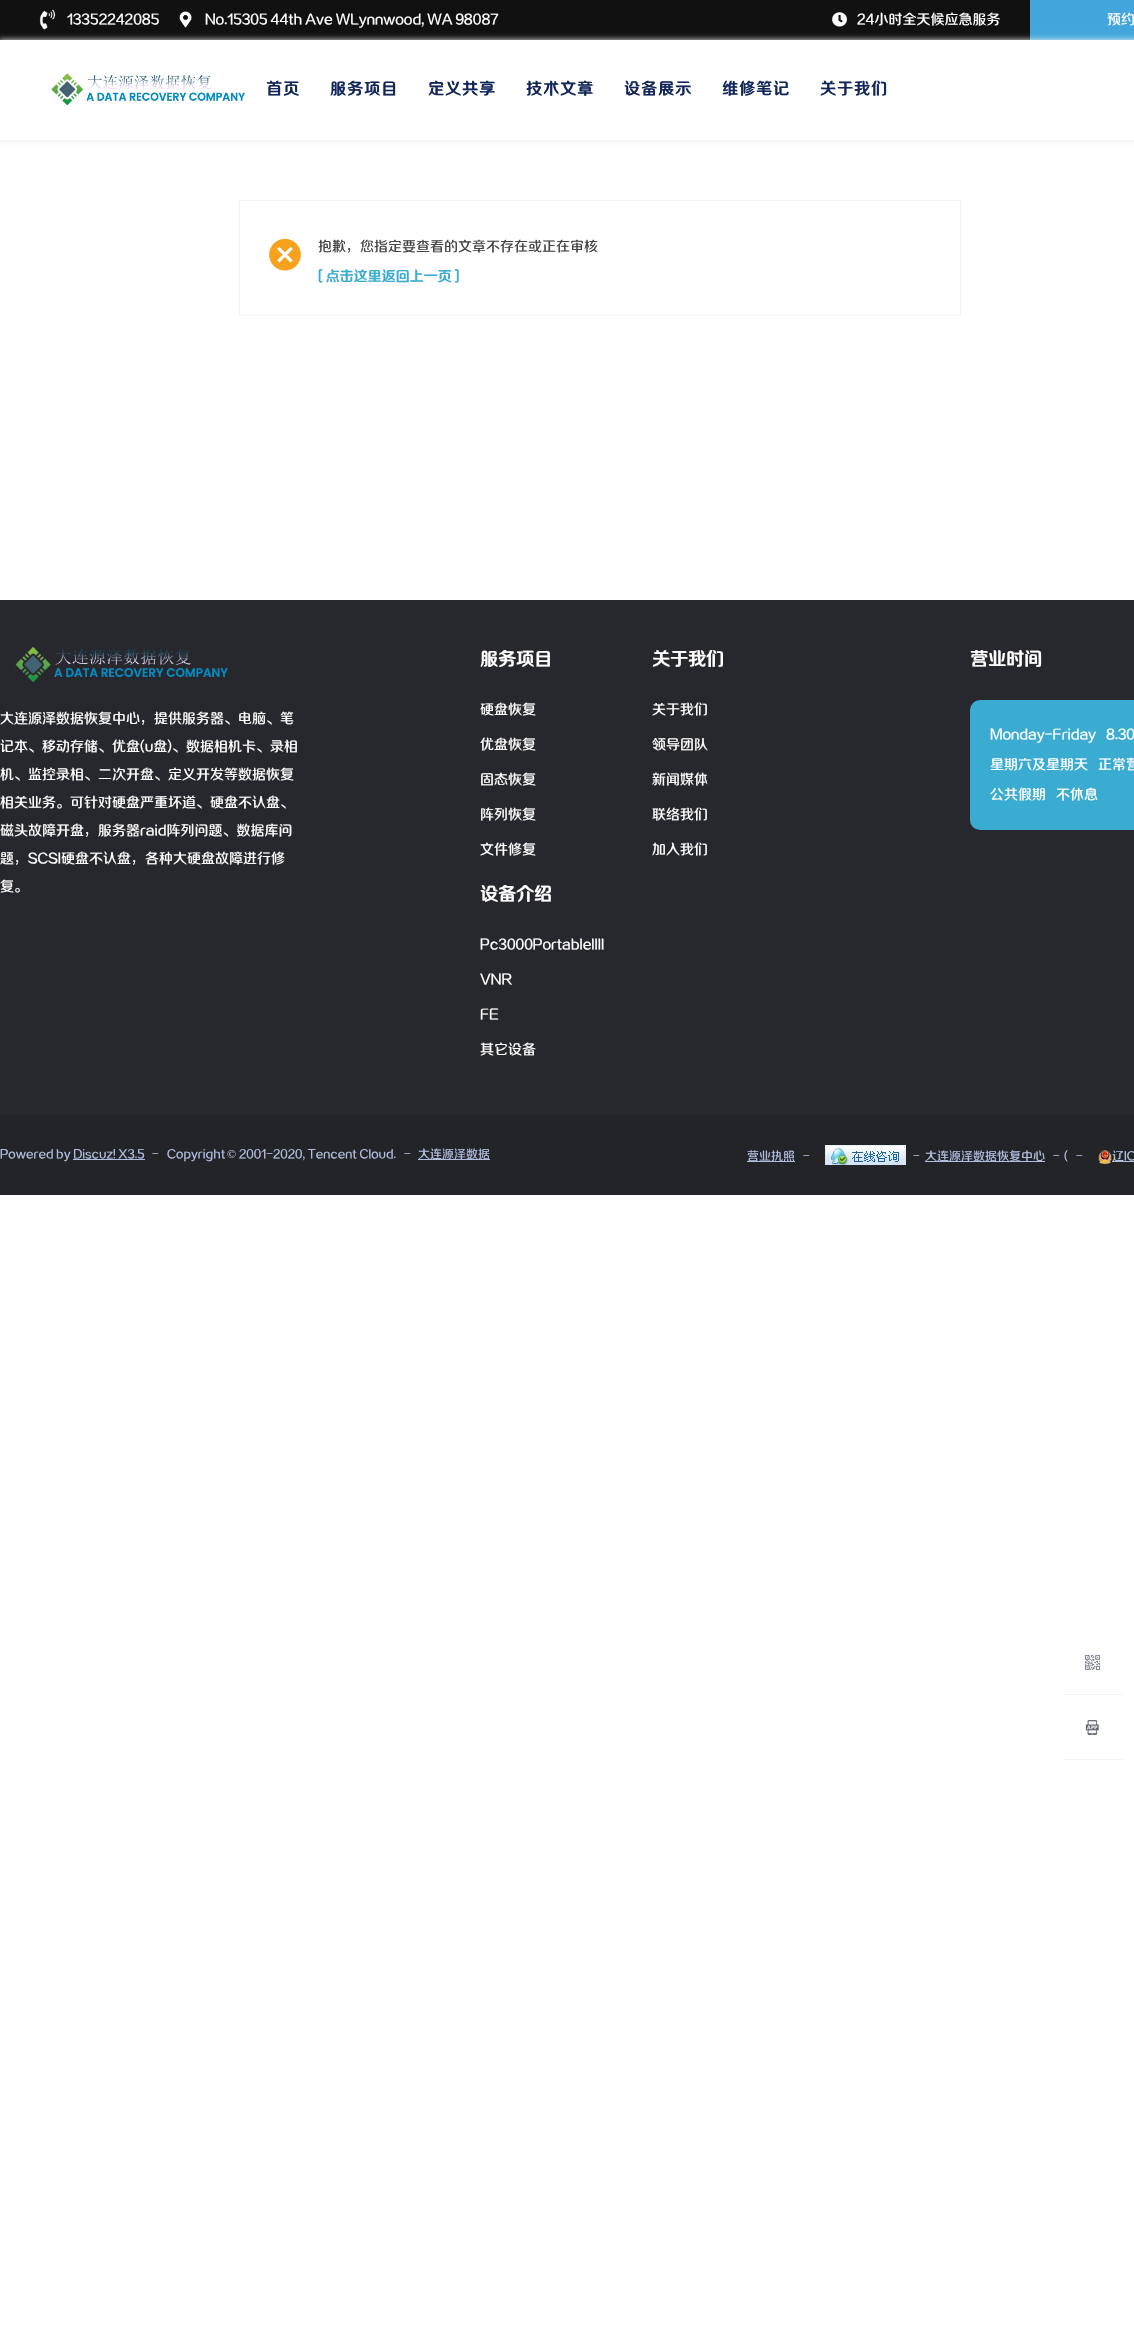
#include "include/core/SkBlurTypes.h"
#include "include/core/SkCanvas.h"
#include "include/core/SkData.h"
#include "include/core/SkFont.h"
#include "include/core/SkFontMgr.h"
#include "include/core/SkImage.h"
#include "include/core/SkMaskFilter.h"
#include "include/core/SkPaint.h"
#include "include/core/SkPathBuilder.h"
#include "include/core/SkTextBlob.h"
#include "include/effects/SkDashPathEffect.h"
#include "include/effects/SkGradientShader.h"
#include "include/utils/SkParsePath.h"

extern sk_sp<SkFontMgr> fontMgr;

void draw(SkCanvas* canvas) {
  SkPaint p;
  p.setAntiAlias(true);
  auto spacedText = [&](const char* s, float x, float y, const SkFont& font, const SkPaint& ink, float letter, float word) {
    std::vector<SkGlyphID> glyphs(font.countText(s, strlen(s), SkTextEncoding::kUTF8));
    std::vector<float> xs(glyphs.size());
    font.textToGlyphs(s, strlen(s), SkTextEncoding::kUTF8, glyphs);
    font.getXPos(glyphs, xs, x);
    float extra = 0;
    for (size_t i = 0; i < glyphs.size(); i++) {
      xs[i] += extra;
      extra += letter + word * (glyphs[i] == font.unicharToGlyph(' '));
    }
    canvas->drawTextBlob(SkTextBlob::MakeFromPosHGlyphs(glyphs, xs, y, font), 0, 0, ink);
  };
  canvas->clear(SK_ColorWHITE);
  p.setColor(SkColorSetRGB(17, 17, 17));
  canvas->drawRect(SkRect::MakeLTRB(0, 0, 1030, 40), p);
  canvas->drawImageRect(SkImages::DeferredFromEncodedData(SkData::MakeFromFileName("images/1.png")), SkRect::MakeLTRB(39, 9, 56, 30), SkSamplingOptions());
  canvas->drawImageRect(SkImages::DeferredFromEncodedData(SkData::MakeFromFileName("images/2.png")), SkRect::MakeLTRB(179, 11, 192, 28), SkSamplingOptions());
  canvas->drawImageRect(SkImages::DeferredFromEncodedData(SkData::MakeFromFileName("images/3.png")), SkRect::MakeLTRB(832, 12, 847, 27), SkSamplingOptions());
  p.setColor(SkColorSetRGB(66, 166, 220));
  canvas->drawRect(SkRect::MakeLTRB(1030, 0, 1134, 40), p);
  canvas->save();
  canvas->clipPath(SkPathBuilder(SkPathFillType::kEvenOdd).moveTo(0, 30).lineTo(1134, 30).lineTo(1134, 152).lineTo(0, 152).close().moveTo(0, 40).lineTo(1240, 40).lineTo(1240, 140).lineTo(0, 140).close().detach(), true);
  p.setColor(SkColorSetRGB(243, 243, 243));
  p.setMaskFilter(SkMaskFilter::MakeBlur(kNormal_SkBlurStyle, 3));
  canvas->drawRect(SkRect::MakeLTRB(-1, 40, 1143, 142), p);
  p.setMaskFilter(nullptr);
  canvas->restore();
  canvas->drawImageRect(SkImages::DeferredFromEncodedData(SkData::MakeFromFileName("images/4.png")), SkRect::MakeLTRB(51, 73, 246, 106), SkSamplingOptions());
  canvas->drawRect(SkRect::MakeLTRB(1063, 1694, 1123, 1695), p);
  canvas->drawImageRect(SkImages::DeferredFromEncodedData(SkData::MakeFromFileName("images/5.png")), SkRect::MakeLTRB(1085, 1655, 1100, 1670), SkSamplingOptions());
  canvas->drawRect(SkRect::MakeLTRB(1063, 1759, 1123, 1760), p);
  canvas->drawImageRect(SkImages::DeferredFromEncodedData(SkData::MakeFromFileName("images/6.png")), SkRect::MakeLTRB(1085, 1720, 1099, 1735), SkSamplingOptions());
  p.setStyle(SkPaint::kStroke_Style);
  p.setStrokeWidth(1);
  canvas->drawRect(SkRect::MakeLTRB(239.5f, 200.5f, 960.5f, 315.5f), p);
  canvas->drawImageRect(SkImages::DeferredFromEncodedData(SkData::MakeFromFileName("images/7.png")), SkRect::MakeLTRB(269, 238, 301, 271), SkSamplingOptions());
  p.setStyle(SkPaint::kFill_Style);
  p.setColor(SkColorSetRGB(39, 40, 45));
  canvas->drawRect(SkRect::MakeLTRB(0, 600, 1134, 1115), p);
  canvas->drawImageRect(SkImages::DeferredFromEncodedData(SkData::MakeFromFileName("images/8.png")), SkRect::MakeLTRB(15, 647, 228, 683), SkSamplingOptions());
  p.setColor(SkColorSetRGB(58, 172, 210));
  canvas->drawRoundRect(SkRect::MakeLTRB(970, 700, 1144, 830), 10, 10, p);
  p.setColor(SkColorSetRGB(35, 36, 39));
  canvas->drawRect(SkRect::MakeLTRB(0, 1115, 1134, 1195), p);
  p.setColor(SkColorSetRGB(177, 190, 224));
  canvas->drawRect(SkRect::MakeLTRB(418, 1159, 490, 1160), p);
  canvas->drawRect(SkRect::MakeLTRB(73, 1159, 145, 1160), p);
  canvas->drawRect(SkRect::MakeLTRB(747, 1161, 795, 1162), p);
  canvas->drawImageRect(SkImages::DeferredFromEncodedData(SkData::MakeFromFileName("images/9.png")), SkRect::MakeLTRB(825, 1145, 906, 1165), SkSamplingOptions());
  canvas->drawRect(SkRect::MakeLTRB(925, 1161, 1045, 1162), p);
  canvas->drawImageRect(SkImages::DeferredFromEncodedData(SkData::MakeFromFileName("images/10.png")), SkRect::MakeLTRB(1098, 1150, 1112, 1164), SkSamplingOptions());
  canvas->drawRect(SkRect::MakeLTRB(1112, 1161, 1134, 1162), p);
  SkFont font1(fontMgr->matchFamilyStyle("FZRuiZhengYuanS", SkFontStyle(500, SkFontStyle::kNormal_Width, SkFontStyle::kUpright_Slant)), 14);
  font1.setSubpixel(true);
  p.setColor(SK_ColorWHITE);
  canvas->drawString("13352242085", 67, 24, font1, p);
  canvas->drawString("No.15305 44th Ave WLynnwood, WA 98087", 205, 24, font1, p);
  canvas->drawString("24小时全天候应急服务", 857, 24, font1, p);
  canvas->drawString("预约", 1107, 24, font1, p);
  SkFont font2(fontMgr->matchFamilyStyle("FZRuiZhengYuanS", SkFontStyle::Bold()), 16);
  font2.setSubpixel(true);
  p.setColor(SkColorSetRGB(18, 38, 90));
  spacedText("首页", 266, 94, font2, p, 1, 0);
  spacedText("服务项目", 330, 94, font2, p, 1, 0);
  spacedText("定义共享", 428, 94, font2, p, 1, 0);
  spacedText("技术文章", 526, 94, font2, p, 1, 0);
  spacedText("设备展示", 624, 94, font2, p, 1, 0);
  spacedText("维修笔记", 722, 94, font2, p, 1, 0);
  spacedText("关于我们", 820, 94, font2, p, 1, 0);
  p.setColor(SkColorSetRGB(68, 68, 68));
  canvas->drawString("抱歉，您指定要查看的文章不存在或正在审核", 318, 251, font1, p);
  SkFont font3(fontMgr->matchFamilyStyle("FZRuiZhengYuanS", SkFontStyle::Bold()), 14);
  font3.setSubpixel(true);
  p.setColor(SkColorSetRGB(58, 172, 210));
  canvas->drawString("[ 点击这里返回上一页 ]", 318, 281, font3, p);
  p.setColor(SK_ColorWHITE);
  canvas->drawString("大连源泽数据恢复中心，提供服务器、电脑、笔", 0, 723, font1, p);
  canvas->drawString("记本、移动存储、优盘(u盘)、数据相机卡、录相", 0, 751, font1, p);
  canvas->drawString("机、监控录相、二次开盘、定义开发等数据恢复", 0, 779, font1, p);
  canvas->drawString("相关业务。可针对硬盘严重坏道、硬盘不认盘、", 0, 807, font1, p);
  canvas->drawString("磁头故障开盘，服务器raid阵列问题、数据库问", 0, 835, font1, p);
  canvas->drawString("题，SCSI硬盘不认盘，各种大硬盘故障进行修", 0, 863, font1, p);
  canvas->drawString("复。", 0, 891, font1, p);
  SkFont font4(fontMgr->matchFamilyStyle("FZRuiZhengYuanS", SkFontStyle::Bold()), 18);
  font4.setSubpixel(true);
  canvas->drawString("服务项目", 480, 665, font4, p);
  canvas->drawString("硬盘恢复", 480, 714, font1, p);
  canvas->drawString("优盘恢复", 480, 749, font1, p);
  canvas->drawString("固态恢复", 480, 784, font1, p);
  canvas->drawString("阵列恢复", 480, 819, font1, p);
  canvas->drawString("文件修复", 480, 854, font1, p);
  canvas->drawString("关于我们", 652, 665, font4, p);
  canvas->drawString("关于我们", 652, 714, font1, p);
  canvas->drawString("领导团队", 652, 749, font1, p);
  canvas->drawString("新闻媒体", 652, 784, font1, p);
  canvas->drawString("联络我们", 652, 819, font1, p);
  canvas->drawString("加入我们", 652, 854, font1, p);
  canvas->drawString("设备介绍", 480, 900, font4, p);
  canvas->drawString("Pc3000PortableIIII", 480, 949, font1, p);
  canvas->drawString("VNR", 480, 984, font1, p);
  canvas->drawString("FE", 480, 1019, font1, p);
  canvas->drawString("其它设备", 480, 1054, font1, p);
  canvas->drawString("营业时间", 970, 665, font4, p);
  canvas->drawString("Monday-Friday", 990, 739, font1, p);
  canvas->drawString("8.30", 1106, 739, font1, p);
  canvas->drawString("星期六及星期天", 990, 769, font1, p);
  canvas->drawString("正常营", 1098, 769, font1, p);
  canvas->drawString("公共假期", 990, 799, font1, p);
  canvas->drawString("不休息", 1056, 799, font1, p);
  SkFont font5(fontMgr->matchFamilyStyle("FZRuiZhengYuanS", SkFontStyle(500, SkFontStyle::kNormal_Width, SkFontStyle::kUpright_Slant)), 12);
  font5.setSubpixel(true);
  p.setColor(SkColorSetRGB(177, 190, 224));
  canvas->drawString("Powered by Discuz! X3.5", 0, 1158, font5, p);
  canvas->drawString("-", 152, 1158, font5, p);
  canvas->drawString("Copyright", 167, 1158, font5, p);
  SkFont font6(fontMgr->matchFamilyStyle("Liberation Serif", SkFontStyle::Normal()), 12);
  font6.setSubpixel(true);
  canvas->drawString("©", 227, 1158, font6, p);
  canvas->drawString("2001-2020, Tencent Cloud.", 239, 1158, font5, p);
  canvas->drawString("-", 404, 1158, font5, p);
  canvas->drawString("大连源泽数据", 418, 1158, font5, p);
  canvas->drawString("营业执照", 747, 1160, font5, p);
  canvas->drawString("-", 803, 1160, font5, p);
  canvas->drawString("-", 913, 1160, font5, p);
  canvas->drawString("大连源泽数据恢复中心", 925, 1160, font5, p);
  canvas->drawString("-", 1053, 1160, font5, p);
  canvas->drawString("(", 1064, 1160, font5, p);
  canvas->drawString("-", 1076, 1160, font5, p);
  canvas->drawString("辽IC", 1112, 1160, font5, p);
}
